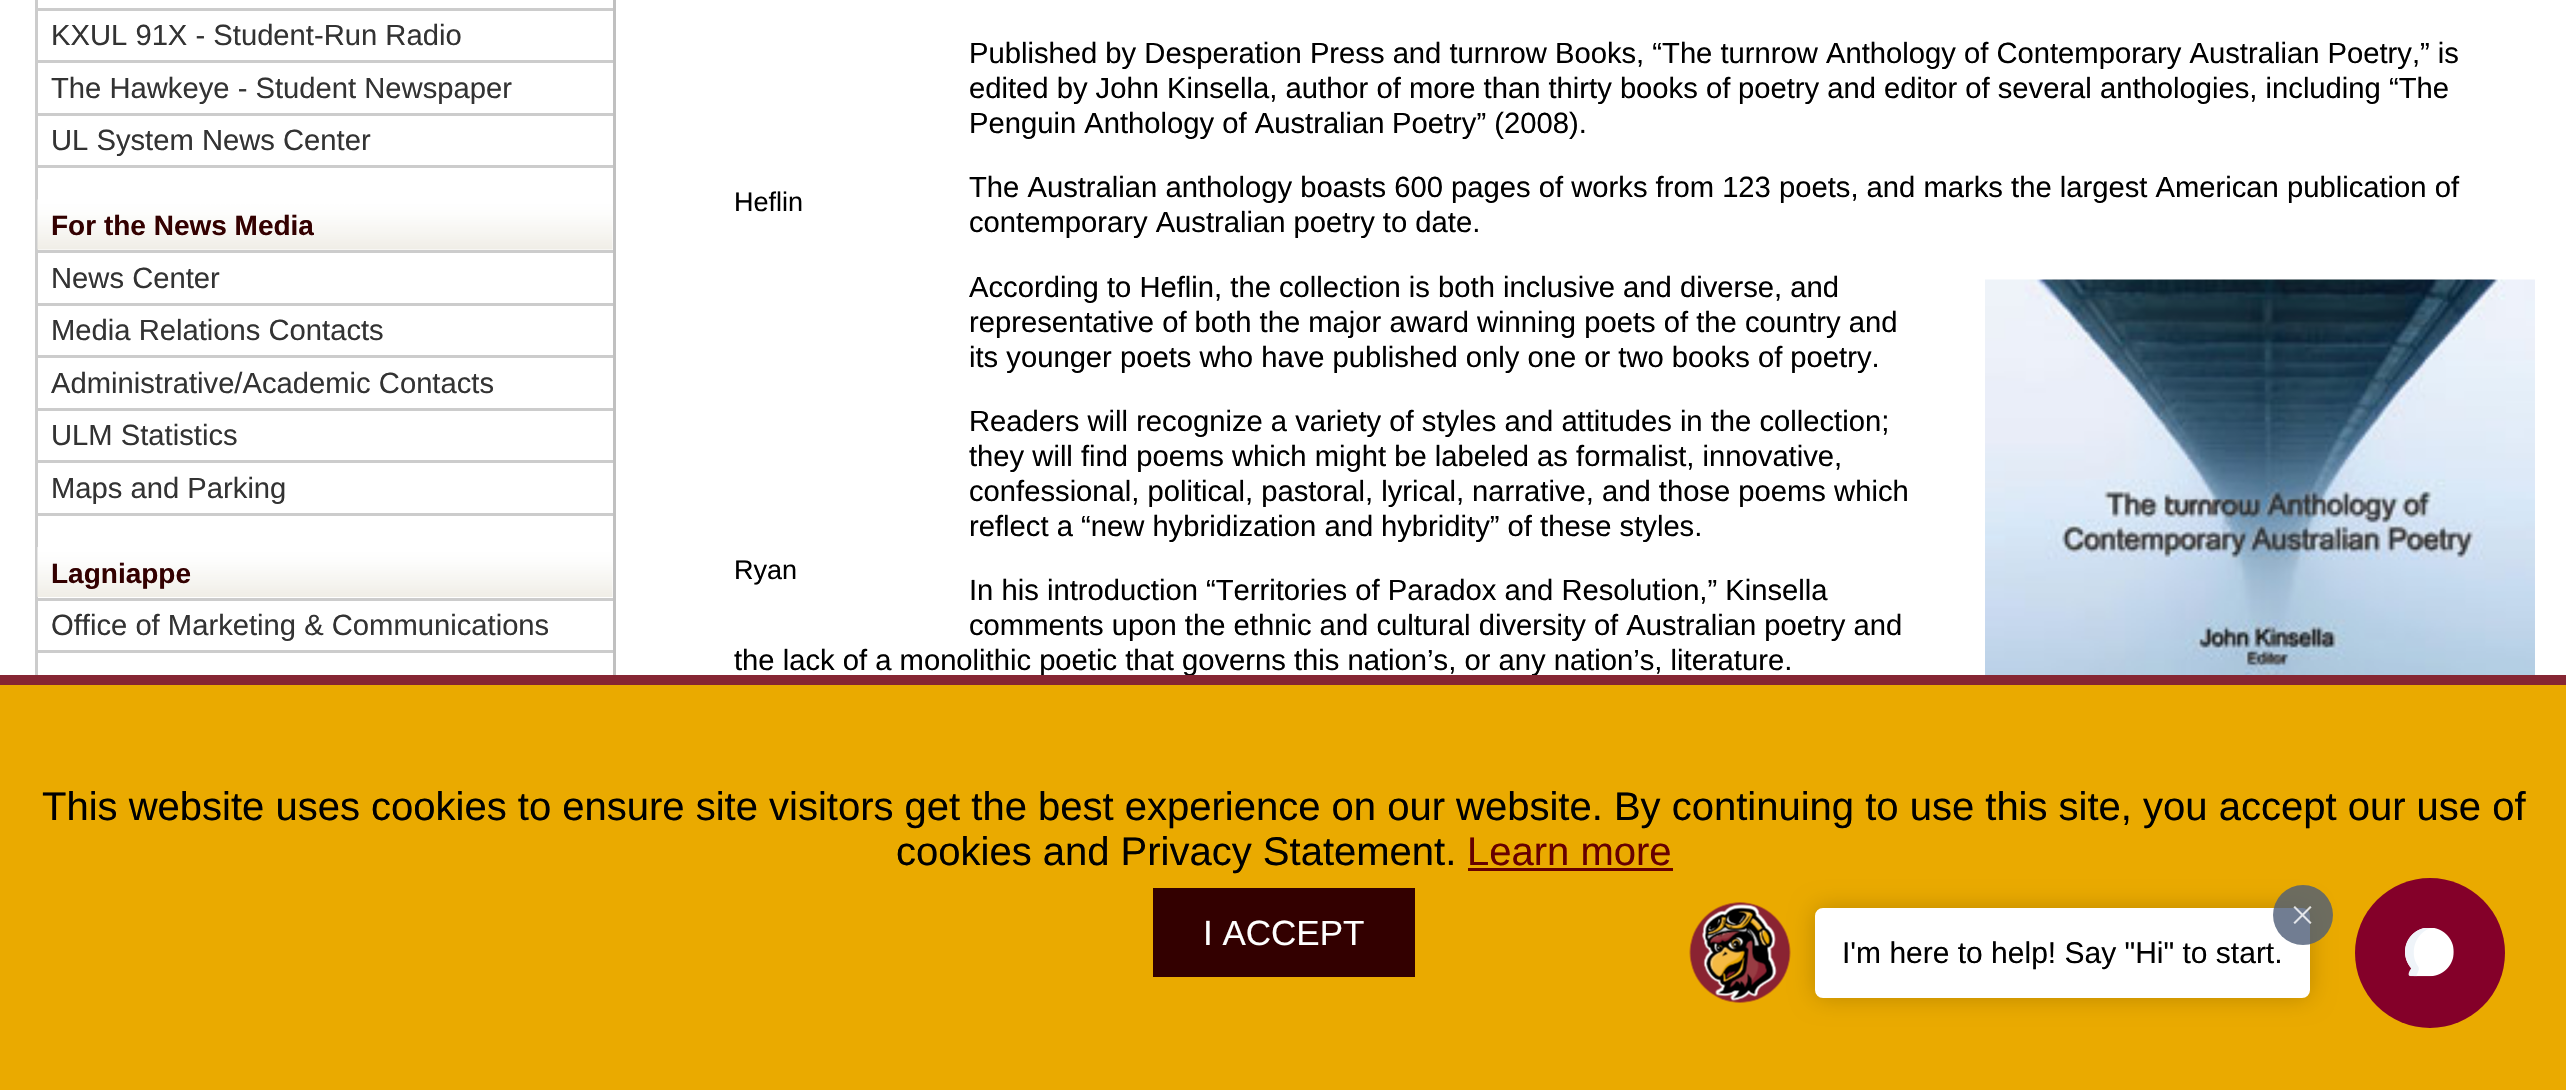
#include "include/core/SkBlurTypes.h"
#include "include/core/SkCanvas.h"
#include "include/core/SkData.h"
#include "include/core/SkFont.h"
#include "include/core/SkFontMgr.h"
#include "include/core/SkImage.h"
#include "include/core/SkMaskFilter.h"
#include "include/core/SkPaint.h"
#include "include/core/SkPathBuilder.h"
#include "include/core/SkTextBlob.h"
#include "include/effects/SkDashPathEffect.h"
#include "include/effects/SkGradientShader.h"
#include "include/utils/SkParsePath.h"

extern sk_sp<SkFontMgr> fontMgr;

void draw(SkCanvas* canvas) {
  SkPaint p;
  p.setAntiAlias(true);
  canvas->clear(SK_ColorWHITE);
  p.setColor(SkColorSetRGB(192, 192, 192));
  canvas->drawRect(SkRect::MakeLTRB(613, 0, 616, 675), p);
  p.setColor(SkColorSetRGB(204, 204, 204));
  canvas->drawRect(SkRect::MakeLTRB(35, 0, 38, 675), p);
  canvas->drawRect(SkRect::MakeLTRB(38, 8, 613, 11), p);
  canvas->drawRect(SkRect::MakeLTRB(38, 60, 613, 63), p);
  canvas->drawRect(SkRect::MakeLTRB(38, 113, 613, 116), p);
  canvas->drawRect(SkRect::MakeLTRB(38, 165, 613, 168), p);
  canvas->drawImageRect(SkImages::DeferredFromEncodedData(SkData::MakeFromFileName("images/1.png")), SkRect::MakeLTRB(37, 199, 613, 250), SkSamplingOptions());
  canvas->drawRect(SkRect::MakeLTRB(38, 250, 613, 253), p);
  canvas->drawRect(SkRect::MakeLTRB(38, 303, 613, 306), p);
  canvas->drawRect(SkRect::MakeLTRB(38, 355, 613, 358), p);
  canvas->drawRect(SkRect::MakeLTRB(38, 408, 613, 411), p);
  canvas->drawRect(SkRect::MakeLTRB(38, 460, 613, 463), p);
  canvas->drawRect(SkRect::MakeLTRB(38, 513, 613, 516), p);
  canvas->drawImageRect(SkImages::DeferredFromEncodedData(SkData::MakeFromFileName("images/2.png")), SkRect::MakeLTRB(37, 547, 613, 597), SkSamplingOptions());
  canvas->drawRect(SkRect::MakeLTRB(38, 598, 613, 601), p);
  canvas->drawRect(SkRect::MakeLTRB(38, 650, 613, 653), p);
  canvas->drawImageRect(SkImages::DeferredFromEncodedData(SkData::MakeFromFileName("images/3.png")), SkRect::MakeLTRB(1985, 279, 2535, 675), SkSamplingOptions());
  p.setColor(SkColorSetRGB(234, 170, 0));
  canvas->drawRect(SkRect::MakeLTRB(0, 685, 2566, 1090), p);
  p.setColor(SkColorSetRGB(102, 0, 0));
  canvas->drawRect(SkRect::MakeLTRB(1468, 868, 1673, 871), p);
  p.setColor(SkColorSetRGB(51, 0, 0));
  canvas->drawRect(SkRect::MakeLTRB(1153, 888, 1415, 977), p);
  canvas->drawImageRect(SkImages::DeferredFromEncodedData(SkData::MakeFromFileName("images/4.png")), SkRect::MakeLTRB(1689, 902, 1791, 1003), SkSamplingOptions());
  p.setColor(SkColorSetARGB(51, 0, 0, 0));
  p.setMaskFilter(SkMaskFilter::MakeBlur(kNormal_SkBlurStyle, 12.5f));
  canvas->drawRoundRect(SkRect::MakeLTRB(1815, 908, 2310, 998), 8, 8, p);
  p.setMaskFilter(nullptr);
  p.setColor(SK_ColorWHITE);
  canvas->drawRoundRect(SkRect::MakeLTRB(1816.5f, 909.5f, 2308.5f, 996.5f), 6.5f, 6.5f, p);
  p.setStyle(SkPaint::kStroke_Style);
  p.setStrokeWidth(3);
  canvas->drawRoundRect(SkRect::MakeLTRB(1816.5f, 909.5f, 2308.5f, 996.5f), 6.5f, 6.5f, p);
  p.setStyle(SkPaint::kFill_Style);
  p.setColor(SkColorSetRGB(132, 0, 41));
  canvas->drawCircle(2430, 953, 75, p);
  canvas->drawImageRect(SkImages::DeferredFromEncodedData(SkData::MakeFromFileName("images/6.png")), SkRect::MakeLTRB(2405, 928, 2454, 977), SkSamplingOptions());
  SkFont font1(fontMgr->matchFamilyStyle("Liberation Sans", SkFontStyle::Normal()), 29.2f);
  font1.setSubpixel(true);
  p.setColor(SkColorSetRGB(51, 51, 51));
  canvas->drawString("KXUL 91X - Student-Run Radio", 51, 45, font1, p);
  canvas->drawString("The Hawkeye - Student Newspaper", 51, 98, font1, p);
  canvas->drawString("UL System News Center", 51, 150, font1, p);
  SkFont font2(fontMgr->matchFamilyStyle("Liberation Sans", SkFontStyle::Bold()), 28);
  font2.setSubpixel(true);
  p.setColor(SkColorSetRGB(51, 0, 0));
  canvas->drawString("For the News Media", 51, 235, font2, p);
  p.setColor(SkColorSetRGB(51, 51, 51));
  canvas->drawString("News Center", 51, 288, font1, p);
  canvas->drawString("Media Relations Contacts", 51, 340, font1, p);
  canvas->drawString("Administrative/Academic Contacts", 51, 393, font1, p);
  canvas->drawString("ULM Statistics", 51, 445, font1, p);
  canvas->drawString("Maps and Parking", 51, 498, font1, p);
  p.setColor(SkColorSetRGB(51, 0, 0));
  canvas->drawString("Lagniappe", 51, 583, font2, p);
  p.setColor(SkColorSetRGB(51, 51, 51));
  canvas->drawString("Office of Marketing & Communications", 51, 635, font1, p);
  p.setColor(SK_ColorBLACK);
  canvas->drawString("Published by Desperation Press and turnrow Books, “The turnrow Anthology of Contemporary Australian Poetry,” is", 969, 63, font1, p);
  canvas->drawString("edited by John Kinsella, author of more than thirty books of", 969, 98, font1, p);
  canvas->drawString("poetry and editor of several anthologies, including “The", 1738, 98, font1, p);
  canvas->drawString("Penguin Anthology of Australian", 969, 133, font1, p);
  canvas->drawString("Poetry” (2008).", 1392, 133, font1, p);
  SkFont font3(fontMgr->matchFamilyStyle("Liberation Sans", SkFontStyle::Normal()), 27);
  font3.setSubpixel(true);
  canvas->drawString("Heflin", 734, 211, font3, p);
  canvas->drawString("The Australian anthology boasts 600 pages of works from 123 poets, and marks the largest American publication of", 969, 197, font1, p);
  canvas->drawString("contemporary Australian poetry to date.", 969, 232, font1, p);
  canvas->drawString("According to Heflin, the collection is both inclusive and diverse, and", 969, 297, font1, p);
  canvas->drawString("representative of both the major award winning poets of the country and", 969, 332, font1, p);
  canvas->drawString("its younger poets who have published only one or two books of poetry.", 969, 367, font1, p);
  canvas->drawString("Readers will recognize a variety of styles and attitudes in the collection;", 969, 431, font1, p);
  canvas->drawString("they will find poems which might be labeled as formalist, innovative,", 969, 466, font1, p);
  canvas->drawString("confessional, political, pastoral, lyrical, narrative, and those poems which", 969, 501, font1, p);
  canvas->drawString("reflect a “new hybridization and", 969, 536, font1, p);
  canvas->drawString("hybridity” of these styles.", 1381, 536, font1, p);
  canvas->drawString("Ryan", 734, 579, font3, p);
  canvas->drawString("In his introduction “Territories of Paradox and Resolution,” Kinsella", 969, 600, font1, p);
  canvas->drawString("comments upon the ethnic and cultural diversity of Australian poetry and", 969, 635, font1, p);
  canvas->drawString("the lack of a monolithic poetic that governs this nation’s, or any nation’s, literature.", 734, 670, font1, p);
  p.setColor(SkColorSetRGB(134, 38, 51));
  canvas->drawRect(SkRect::MakeLTRB(0, 675, 2566, 685), p);
  SkFont font4(fontMgr->matchFamilyStyle("Liberation Sans", SkFontStyle::Normal()), 40);
  font4.setSubpixel(true);
  p.setColor(SK_ColorBLACK);
  canvas->drawString("This website uses cookies to ensure site visitors get the best experience on our website. By continuing to use this site, you accept our use of", 42, 820, font4, p);
  canvas->drawString("cookies and Privacy Statement.", 896, 865, font4, p);
  p.setColor(SkColorSetRGB(102, 0, 0));
  canvas->drawString("Learn more", 1467, 865, font4, p);
  SkFont font5(fontMgr->matchFamilyStyle("Liberation Sans", SkFontStyle::Normal()), 35);
  font5.setSubpixel(true);
  p.setColor(SK_ColorWHITE);
  canvas->drawString("I ACCEPT", 1203, 945, font5, p);
  SkFont font6(fontMgr->matchFamilyStyle("Liberation Sans", SkFontStyle::Normal()), 30);
  font6.setSubpixel(true);
  p.setColor(SK_ColorBLACK);
  canvas->drawString("I'm here to help! Say \"Hi\" to start.", 1842, 963, font6, p);
  p.setColor(SkColorSetARGB(204, 78, 93, 119));
  canvas->drawCircle(2303, 915, 30, p);
  canvas->drawImageRect(SkImages::DeferredFromEncodedData(SkData::MakeFromFileName("images/5.png")), SkRect::MakeLTRB(2293, 906, 2312, 924), SkSamplingOptions());
}
